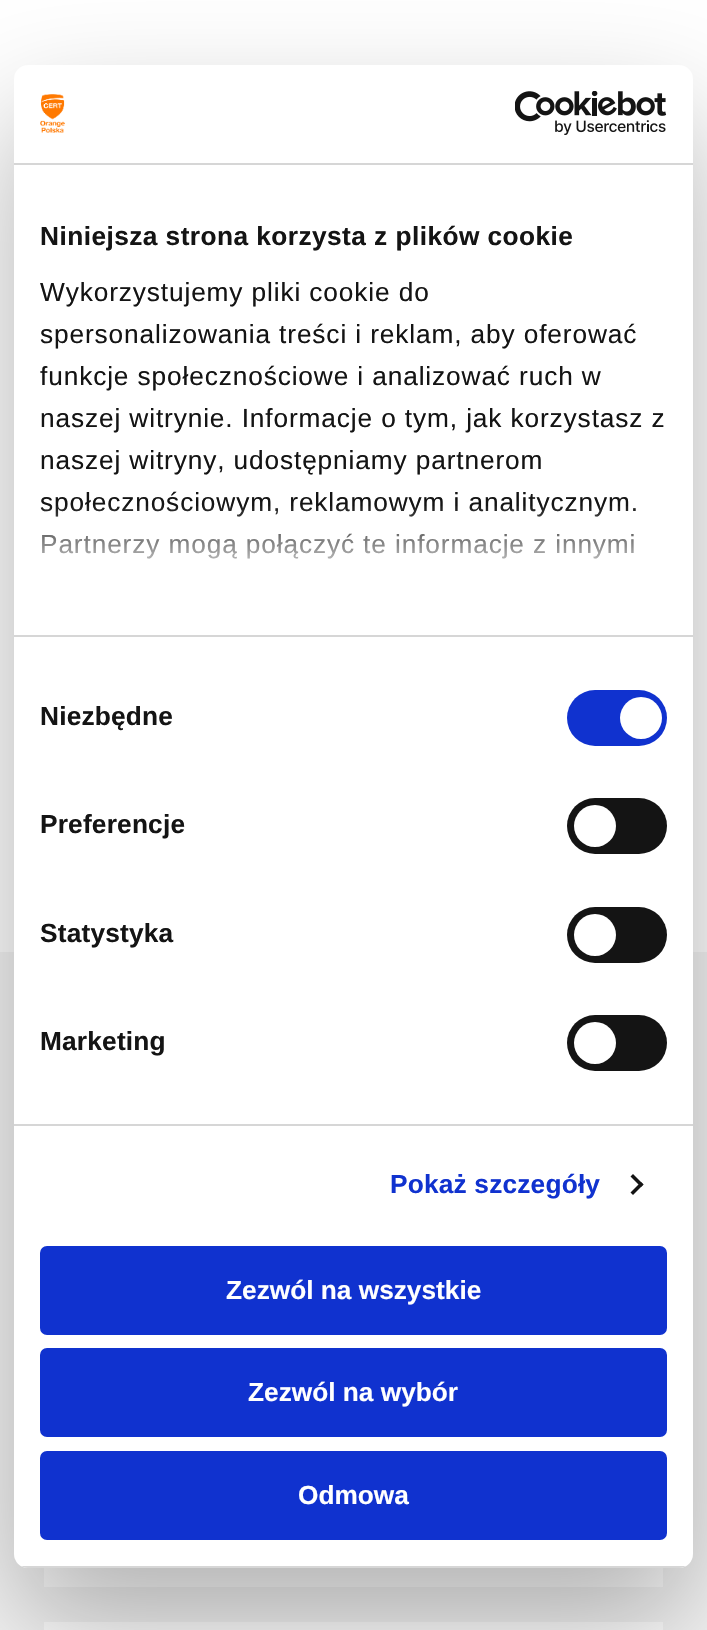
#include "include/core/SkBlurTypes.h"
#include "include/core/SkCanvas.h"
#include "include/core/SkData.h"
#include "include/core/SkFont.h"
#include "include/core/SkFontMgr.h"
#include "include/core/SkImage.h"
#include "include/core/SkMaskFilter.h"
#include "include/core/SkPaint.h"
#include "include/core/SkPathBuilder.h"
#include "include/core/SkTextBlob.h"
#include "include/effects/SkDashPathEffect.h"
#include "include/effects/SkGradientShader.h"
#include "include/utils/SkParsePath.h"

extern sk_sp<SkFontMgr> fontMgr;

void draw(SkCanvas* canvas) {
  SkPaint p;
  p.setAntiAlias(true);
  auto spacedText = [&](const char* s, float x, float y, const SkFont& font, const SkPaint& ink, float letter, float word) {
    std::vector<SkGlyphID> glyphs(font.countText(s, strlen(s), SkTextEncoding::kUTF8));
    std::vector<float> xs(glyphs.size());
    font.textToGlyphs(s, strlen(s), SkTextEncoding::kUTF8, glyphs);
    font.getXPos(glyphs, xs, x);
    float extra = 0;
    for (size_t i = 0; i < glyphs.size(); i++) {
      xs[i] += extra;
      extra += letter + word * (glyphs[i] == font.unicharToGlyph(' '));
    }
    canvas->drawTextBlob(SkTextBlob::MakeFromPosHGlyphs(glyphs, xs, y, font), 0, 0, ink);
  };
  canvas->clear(SkColorSetRGB(245, 245, 245));
  p.setColor(SK_ColorWHITE);
  canvas->drawRect(SkRect::MakeLTRB(0, 0, 707, 952), p);
  canvas->drawRect(SkRect::MakeLTRB(44, 1568, 663, 1587), p);
  canvas->drawRect(SkRect::MakeLTRB(44, 1622, 663, 1630), p);
  p.setColor(SkColorSetARGB(77, 0, 0, 0));
  p.setMaskFilter(SkMaskFilter::MakeBlur(kNormal_SkBlurStyle, 59.5f));
  canvas->drawRoundRect(SkRect::MakeLTRB(14, 121, 693, 1624), 14, 14, p);
  p.setMaskFilter(nullptr);
  p.setColor(SK_ColorWHITE);
  canvas->drawRoundRect(SkRect::MakeLTRB(14, 65, 693, 1568), 14, 14, p);
  p.setColor(SkColorSetRGB(214, 214, 214));
  canvas->drawRect(SkRect::MakeLTRB(14, 163, 693, 165), p);
  canvas->drawImageRect(SkImages::DeferredFromEncodedData(SkData::MakeFromFileName("images/1.png")), SkRect::MakeLTRB(40, 94, 65, 133), SkSamplingOptions());
  canvas->drawImageRect(SkImages::DeferredFromEncodedData(SkData::MakeFromFileName("images/2.png")), SkRect::MakeLTRB(515, 91, 667, 135), SkSamplingOptions());
  canvas->drawRect(SkRect::MakeLTRB(14, 635, 693, 637), p);
  canvas->drawRect(SkRect::MakeLTRB(14, 1124, 693, 1126), p);
  p.setColor(SkColorSetRGB(16, 50, 207));
  canvas->drawRoundRect(SkRect::MakeLTRB(567, 690, 667, 746), 28, 28, p);
  p.setColor(SK_ColorWHITE);
  canvas->drawCircle(641, 718, 21, p);
  p.setColor(SkColorSetRGB(20, 20, 20));
  canvas->drawRoundRect(SkRect::MakeLTRB(567, 798, 667, 854), 28, 28, p);
  p.setColor(SK_ColorWHITE);
  canvas->drawCircle(595, 826, 21, p);
  p.setColor(SkColorSetRGB(20, 20, 20));
  canvas->drawRoundRect(SkRect::MakeLTRB(567, 907, 667, 963), 28, 28, p);
  p.setColor(SK_ColorWHITE);
  canvas->drawCircle(595, 935, 21, p);
  p.setColor(SkColorSetRGB(20, 20, 20));
  canvas->drawRoundRect(SkRect::MakeLTRB(567, 1015, 667, 1071), 28, 28, p);
  p.setColor(SK_ColorWHITE);
  canvas->drawCircle(595, 1043, 21, p);
  p.setColor(SkColorSetRGB(20, 20, 20));
  canvas->drawPath(SkPathBuilder().moveTo(633, 1174).lineTo(643.5f, 1184.5f).lineTo(641, 1187).lineTo(630.5f, 1176.5f).close().detach(), p);
  canvas->drawPath(SkPathBuilder().moveTo(641, 1182).lineTo(643.5f, 1184.5f).lineTo(633, 1195).lineTo(630.5f, 1192.5f).close().detach(), p);
  canvas->save();
  canvas->clipPath(SkPathBuilder().moveTo(28, 65).lineTo(679, 65).cubicTo(686.5f, 65, 693, 71.5f, 693, 79).lineTo(693, 1554).cubicTo(693, 1561.5f, 686.5f, 1568, 679, 1568).lineTo(28, 1568).cubicTo(20.5f, 1568, 14, 1561.5f, 14, 1554).lineTo(14, 79).cubicTo(14, 71.5f, 20.5f, 65, 28, 65).close().detach(), true);
  p.setColor(SkColorSetRGB(214, 214, 214));
  canvas->drawRect(SkRect::MakeLTRB(14, 1566, 693, 1568), p);
  canvas->restore();
  p.setColor(SkColorSetRGB(16, 50, 207));
  canvas->drawRoundRect(SkRect::MakeLTRB(42, 1248, 665, 1333), 5, 5, p);
  p.setStyle(SkPaint::kStroke_Style);
  p.setStrokeWidth(4);
  canvas->drawRoundRect(SkRect::MakeLTRB(42, 1248, 665, 1333), 5, 5, p);
  p.setStyle(SkPaint::kFill_Style);
  canvas->drawRoundRect(SkRect::MakeLTRB(42, 1350, 665, 1435), 5, 5, p);
  p.setStyle(SkPaint::kStroke_Style);
  canvas->drawRoundRect(SkRect::MakeLTRB(42, 1350, 665, 1435), 5, 5, p);
  p.setStyle(SkPaint::kFill_Style);
  canvas->drawRoundRect(SkRect::MakeLTRB(42, 1453, 665, 1538), 5, 5, p);
  p.setStyle(SkPaint::kStroke_Style);
  canvas->drawRoundRect(SkRect::MakeLTRB(42, 1453, 665, 1538), 5, 5, p);
  SkFont font1(fontMgr->matchFamilyStyle("Liberation Sans", SkFontStyle::Bold()), 26.25f);
  font1.setSubpixel(true);
  p.setStyle(SkPaint::kFill_Style);
  p.setColor(SkColorSetRGB(20, 20, 20));
  spacedText("Niniejsza strona korzysta z plików cookie", 40, 245, font1, p, 0.45f, 0);
  SkFont font2(fontMgr->matchFamilyStyle("Liberation Sans", SkFontStyle::Normal()), 26.25f);
  font2.setSubpixel(true);
  spacedText("Wykorzystujemy pliki cookie do", 40, 301, font2, p, 0.88f, 0);
  spacedText("spersonalizowania treści i reklam, aby oferować", 40, 343, font2, p, 0.88f, 0);
  spacedText("funkcje społecznościowe i analizować ruch w", 40, 385, font2, p, 0.88f, 0);
  spacedText("naszej witrynie. Informacje o tym, jak korzystasz z", 40, 427, font2, p, 0.88f, 0);
  spacedText("naszej witryny, udostępniamy partnerom", 40, 469, font2, p, 0.88f, 0);
  spacedText("społecznościowym, reklamowym i analitycznym.", 40, 511, font2, p, 0.88f, 0);
  spacedText("Partnerzy mogą połączyć te informacje z innymi", 40, 553, font2, p, 0.88f, 0);
  {
    const SkColor colors[] = {SK_ColorWHITE, SkColorSetARGB(204, 255, 255, 255), SkColorSetARGB(0, 255, 255, 255)};
    const float stops[] = {0, 0.5f, 1};
    const SkPoint ends[] = {{342, 635}, {342, 504}};
    p.setShader(SkGradientShader::MakeLinear(ends, colors, stops, 3, SkTileMode::kClamp));
    p.setAlpha(255);
  }
  canvas->drawRect(SkRect::MakeLTRB(41, 506, 636, 559), p);
  p.setShader(nullptr);
  p.setColor(SkColorSetRGB(20, 20, 20));
  spacedText("Niezbędne", 40, 725, font1, p, 0.2f, 0);
  spacedText("Preferencje", 40, 833, font1, p, 0.2f, 0);
  spacedText("Statystyka", 40, 942, font1, p, 0.2f, 0);
  spacedText("Marketing", 40, 1050, font1, p, 0.2f, 0);
  p.setColor(SkColorSetRGB(16, 50, 207));
  spacedText("Pokaż szczegóły", 390, 1193, font1, p, 0.2f, 0);
  p.setColor(SK_ColorWHITE);
  canvas->drawString("Zezwól na wszystkie", 226, 1299, font1, p);
  canvas->drawString("Zezwól na wybór", 248, 1401, font1, p);
  canvas->drawString("Odmowa", 298, 1504, font1, p);
}
